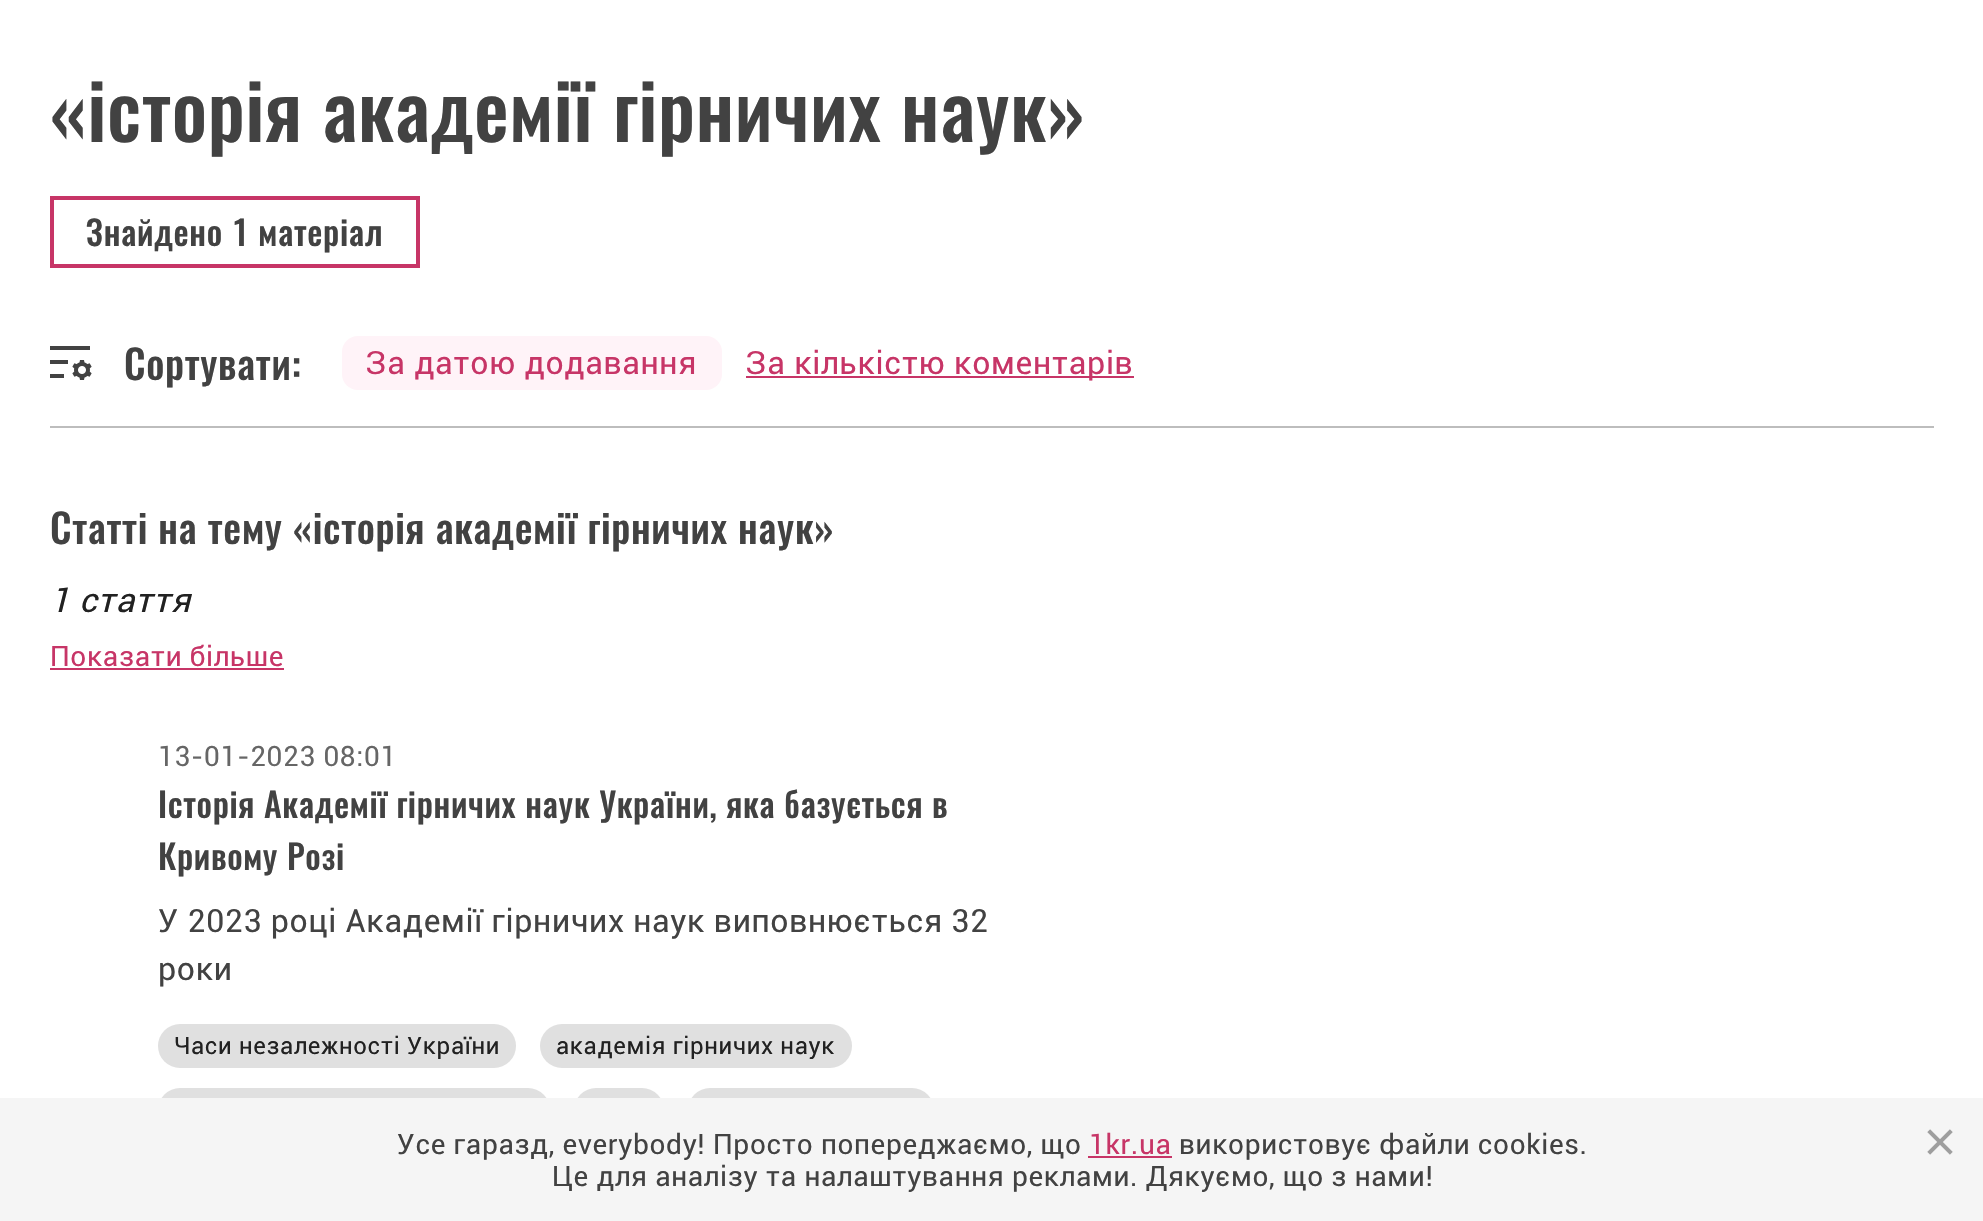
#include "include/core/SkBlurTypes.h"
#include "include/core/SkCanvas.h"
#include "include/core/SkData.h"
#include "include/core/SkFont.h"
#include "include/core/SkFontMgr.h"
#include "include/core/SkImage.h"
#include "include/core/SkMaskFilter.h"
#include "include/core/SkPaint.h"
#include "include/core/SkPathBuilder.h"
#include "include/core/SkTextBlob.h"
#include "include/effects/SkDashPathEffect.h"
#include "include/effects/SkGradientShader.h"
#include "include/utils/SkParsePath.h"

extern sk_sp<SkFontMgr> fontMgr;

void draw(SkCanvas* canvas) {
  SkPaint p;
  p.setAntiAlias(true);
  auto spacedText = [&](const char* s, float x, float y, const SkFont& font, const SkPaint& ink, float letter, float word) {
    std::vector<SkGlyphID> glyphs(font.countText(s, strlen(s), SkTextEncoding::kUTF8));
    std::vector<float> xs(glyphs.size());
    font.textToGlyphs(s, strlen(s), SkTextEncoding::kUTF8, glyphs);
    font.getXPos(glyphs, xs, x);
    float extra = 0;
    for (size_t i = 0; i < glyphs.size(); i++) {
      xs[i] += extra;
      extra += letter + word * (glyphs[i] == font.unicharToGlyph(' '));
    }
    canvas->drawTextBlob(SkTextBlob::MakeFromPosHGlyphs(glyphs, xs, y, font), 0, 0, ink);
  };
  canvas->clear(SK_ColorWHITE);
  p.setStyle(SkPaint::kStroke_Style);
  p.setStrokeWidth(4);
  p.setColor(SkColorSetRGB(199, 53, 103));
  canvas->drawRect(SkRect::MakeLTRB(52, 198, 418, 266), p);
  p.setStyle(SkPaint::kFill_Style);
  p.setColor(SkColorSetRGB(189, 189, 189));
  canvas->drawRect(SkRect::MakeLTRB(50, 426, 1934, 428), p);
  canvas->drawImageRect(SkImages::DeferredFromEncodedData(SkData::MakeFromFileName("images/1.png")), SkRect::MakeLTRB(50, 346, 92, 380), SkSamplingOptions());
  p.setColor(SkColorSetRGB(255, 243, 248));
  canvas->drawRoundRect(SkRect::MakeLTRB(342, 336, 722, 390), 16, 16, p);
  p.setColor(SkColorSetRGB(199, 53, 103));
  canvas->drawRect(SkRect::MakeLTRB(746, 376, 1134, 378), p);
  canvas->drawRect(SkRect::MakeLTRB(50, 668, 284, 670), p);
  p.setColor(SkColorSetRGB(224, 224, 224));
  canvas->drawRoundRect(SkRect::MakeLTRB(158, 1024, 516, 1068), 22, 22, p);
  canvas->drawRoundRect(SkRect::MakeLTRB(540, 1024, 852, 1068), 22, 22, p);
  canvas->drawRoundRect(SkRect::MakeLTRB(158, 1088, 550, 1132), 22, 22, p);
  canvas->drawRoundRect(SkRect::MakeLTRB(574, 1088, 664, 1132), 22, 22, p);
  canvas->drawRoundRect(SkRect::MakeLTRB(688, 1088, 934, 1132), 22, 22, p);
  p.setColor(SkColorSetRGB(245, 245, 245));
  canvas->drawRect(SkRect::MakeLTRB(0, 1098, 1983, 1221), p);
  p.setColor(SkColorSetRGB(199, 53, 103));
  canvas->drawRect(SkRect::MakeLTRB(1088, 1156, 1172, 1158), p);
  canvas->drawImageRect(SkImages::DeferredFromEncodedData(SkData::MakeFromFileName("images/2.png")), SkRect::MakeLTRB(1927, 1129, 1953, 1155), SkSamplingOptions());
  SkFont font1(fontMgr->matchFamilyStyle("Oswald", SkFontStyle(500, SkFontStyle::kNormal_Width, SkFontStyle::kUpright_Slant)), 78);
  font1.setSubpixel(true);
  p.setColor(SkColorSetRGB(66, 66, 66));
  spacedText("«історія академії гірничих наук»", 50, 142, font1, p, 0.65f, 0);
  SkFont font2(fontMgr->matchFamilyStyle("Oswald", SkFontStyle(500, SkFontStyle::kNormal_Width, SkFontStyle::kUpright_Slant)), 34);
  font2.setSubpixel(true);
  spacedText("Знайдено 1 матеріал", 86, 246, font2, p, 0.65f, 0);
  SkFont font3(fontMgr->matchFamilyStyle("Oswald", SkFontStyle(500, SkFontStyle::kNormal_Width, SkFontStyle::kUpright_Slant)), 40);
  font3.setSubpixel(true);
  spacedText("Сортувати:", 124, 380, font3, p, 0.65f, 0);
  SkFont font4(fontMgr->matchFamilyStyle("Roboto", SkFontStyle::Normal()), 32);
  font4.setSubpixel(true);
  p.setColor(SkColorSetRGB(199, 53, 103));
  spacedText("За датою додавання", 365, 374, font4, p, 0.65f, 0);
  spacedText("За кількістю коментарів", 745, 374, font4, p, 0.65f, 0);
  p.setColor(SkColorSetRGB(66, 66, 66));
  spacedText("Статті на тему «історія академії гірничих наук»", 50, 544, font3, p, 0.65f, 0);
  SkFont font5(fontMgr->matchFamilyStyle("Roboto", SkFontStyle::Italic()), 34);
  font5.setSubpixel(true);
  p.setColor(SkColorSetRGB(33, 33, 33));
  spacedText("1 стаття", 50, 612, font5, p, 0.65f, 0);
  SkFont font6(fontMgr->matchFamilyStyle("Roboto", SkFontStyle::Normal()), 28);
  font6.setSubpixel(true);
  p.setColor(SkColorSetRGB(199, 53, 103));
  spacedText("Показати більше", 50, 666, font6, p, 0.65f, 0);
  p.setColor(SkColorSetRGB(102, 102, 102));
  spacedText("13-01-2023 08:01", 158, 766, font6, p, 0.65f, 0);
  p.setColor(SkColorSetRGB(66, 66, 66));
  spacedText("Історія Академії гірничих наук України, яка базується в", 158, 818, font2, p, 0.65f, 0);
  spacedText("Кривому Розі", 158, 870, font2, p, 0.65f, 0);
  spacedText("У 2023 році Академії гірничих наук виповнюється 32", 158, 932, font4, p, 0.65f, 0);
  spacedText("роки", 158, 980, font4, p, 0.65f, 0);
  SkFont font7(fontMgr->matchFamilyStyle("Roboto", SkFontStyle::Normal()), 24);
  font7.setSubpixel(true);
  p.setColor(SkColorSetRGB(33, 33, 33));
  spacedText("Часи незалежності України", 174, 1054, font7, p, 0.65f, 0);
  spacedText("академія гірничих наук", 556, 1054, font7, p, 0.65f, 0);
  p.setColor(SkColorSetRGB(66, 66, 66));
  spacedText("Усе гаразд, everybody! Просто попереджаємо, що", 397, 1154, font6, p, 0.65f, 0);
  p.setColor(SkColorSetRGB(199, 53, 103));
  spacedText("1kr.ua", 1089, 1154, font6, p, 0.65f, 0);
  p.setColor(SkColorSetRGB(66, 66, 66));
  spacedText("використовує файли cookies.", 1179, 1154, font6, p, 0.65f, 0);
  spacedText("Це для аналізу та налаштування реклами. Дякуємо, що з нами!", 552, 1186, font6, p, 0.65f, 0);
}
